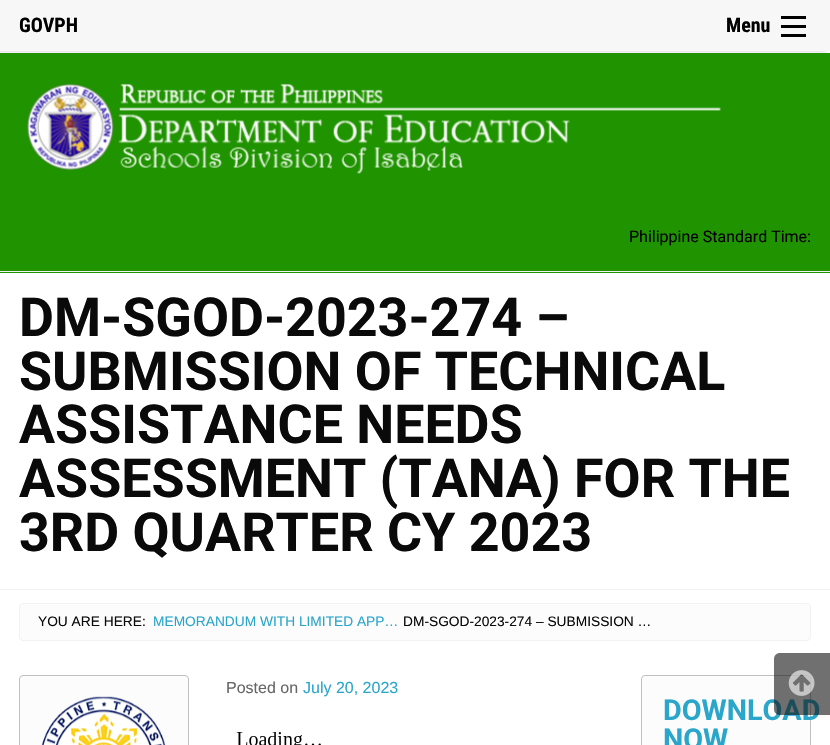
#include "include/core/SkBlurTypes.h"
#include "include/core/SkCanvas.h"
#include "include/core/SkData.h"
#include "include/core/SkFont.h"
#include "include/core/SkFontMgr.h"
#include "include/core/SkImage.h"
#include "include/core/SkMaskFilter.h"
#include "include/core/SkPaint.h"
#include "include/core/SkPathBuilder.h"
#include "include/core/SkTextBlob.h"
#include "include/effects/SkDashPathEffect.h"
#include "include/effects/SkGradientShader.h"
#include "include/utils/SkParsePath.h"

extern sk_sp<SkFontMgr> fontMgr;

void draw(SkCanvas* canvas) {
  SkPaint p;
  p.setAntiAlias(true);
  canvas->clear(SK_ColorWHITE);
  p.setColor(SkColorSetARGB(51, 0, 0, 0));
  p.setMaskFilter(SkMaskFilter::MakeBlur(kNormal_SkBlurStyle, 2.5f));
  canvas->drawRect(SkRect::MakeLTRB(-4, 0, 826, 51), p);
  p.setMaskFilter(nullptr);
  p.setColor(SkColorSetRGB(247, 247, 247));
  canvas->drawRect(SkRect::MakeLTRB(0, 0, 830, 51), p);
  p.setColor(SK_ColorBLACK);
  canvas->drawRect(SkRect::MakeLTRB(781, 34, 806, 37), p);
  canvas->drawRect(SkRect::MakeLTRB(781, 25, 806, 28), p);
  canvas->drawRect(SkRect::MakeLTRB(781, 16, 806, 19), p);
  p.setColor(SkColorSetRGB(32, 147, 0));
  canvas->drawRect(SkRect::MakeLTRB(0, 53, 830, 273), p);
  p.setColor(SkColorSetRGB(242, 242, 242));
  canvas->drawRect(SkRect::MakeLTRB(0, 271, 830, 272), p);
  canvas->drawImageRect(SkImages::DeferredFromEncodedData(SkData::MakeFromFileName("images/1.png")), SkRect::MakeLTRB(27, 83, 721, 174), SkSamplingOptions());
  canvas->drawRect(SkRect::MakeLTRB(0, 589, 830, 590), p);
  p.setColor(SkColorSetRGB(252, 252, 252));
  canvas->drawRoundRect(SkRect::MakeLTRB(19.5f, 603.5f, 810.5f, 640.5f), 3.5f, 3.5f, p);
  p.setStyle(SkPaint::kStroke_Style);
  p.setStrokeWidth(1);
  p.setColor(SkColorSetRGB(242, 242, 242));
  canvas->drawRoundRect(SkRect::MakeLTRB(19.5f, 603.5f, 810.5f, 640.5f), 3.5f, 3.5f, p);
  p.setStyle(SkPaint::kFill_Style);
  p.setColor(SkColorSetRGB(252, 252, 252));
  canvas->drawRoundRect(SkRect::MakeLTRB(19.5f, 675.5f, 188.5f, 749.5f), 3.5f, 3.5f, p);
  p.setStyle(SkPaint::kStroke_Style);
  p.setColor(SkColorSetRGB(192, 192, 192));
  canvas->drawRoundRect(SkRect::MakeLTRB(19.5f, 675.5f, 188.5f, 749.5f), 3.5f, 3.5f, p);
  canvas->drawImageRect(SkImages::DeferredFromEncodedData(SkData::MakeFromFileName("images/2.png")), SkRect::MakeLTRB(41, 696, 166, 745), SkSamplingOptions());
  canvas->drawImageRect(SkImages::DeferredFromEncodedData(SkData::MakeFromFileName("images/3.png")), SkRect::MakeLTRB(236, 732, 321, 745), SkSamplingOptions());
  p.setStyle(SkPaint::kFill_Style);
  p.setColor(SkColorSetRGB(252, 252, 252));
  canvas->drawRoundRect(SkRect::MakeLTRB(641.5f, 675.5f, 810.5f, 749.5f), 3.5f, 3.5f, p);
  p.setStyle(SkPaint::kStroke_Style);
  p.setColor(SkColorSetRGB(192, 192, 192));
  canvas->drawRoundRect(SkRect::MakeLTRB(641.5f, 675.5f, 810.5f, 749.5f), 3.5f, 3.5f, p);
  SkFont font1(fontMgr->matchFamilyStyle("Roboto Condensed", SkFontStyle::Bold()), 20);
  font1.setSubpixel(true);
  p.setStyle(SkPaint::kFill_Style);
  p.setColor(SK_ColorBLACK);
  canvas->drawString("GOVPH", 19, 32, font1, p);
  canvas->drawString("Menu", 726, 32, font1, p);
  SkFont font2(fontMgr->matchFamilyStyle("Roboto", SkFontStyle::Normal()), 16);
  font2.setSubpixel(true);
  canvas->drawString("Philippine Standard Time:", 629, 242, font2, p);
  SkFont font3(fontMgr->matchFamilyStyle("Roboto", SkFontStyle::Bold()), 53.75f);
  font3.setSubpixel(true);
  p.setColor(SkColorSetRGB(10, 10, 10));
  canvas->drawString("DM-SGOD-2023-274 –", 19, 336, font3, p);
  canvas->drawString("SUBMISSION OF TECHNICAL", 19, 390, font3, p);
  canvas->drawString("ASSISTANCE NEEDS", 19, 443, font3, p);
  canvas->drawString("ASSESSMENT (TANA) FOR THE", 19, 497, font3, p);
  canvas->drawString("3RD QUARTER CY 2023", 19, 551, font3, p);
  SkFont font4(fontMgr->matchFamilyStyle("Liberation Sans", SkFontStyle::Normal()), 13.75f);
  font4.setSubpixel(true);
  canvas->drawString("YOU ARE HERE:", 38, 626, font4, p);
  p.setColor(SkColorSetRGB(43, 166, 203));
  canvas->drawString("MEMORANDUM WITH LIMITED APP…", 153, 626, font4, p);
  p.setColor(SkColorSetRGB(10, 10, 10));
  canvas->drawString("DM-SGOD-2023-274 – SUBMISSION …", 403, 626, font4, p);
  SkFont font5(fontMgr->matchFamilyStyle("Liberation Sans", SkFontStyle::Normal()), 16);
  font5.setSubpixel(true);
  p.setColor(SkColorSetRGB(102, 102, 102));
  canvas->drawString("Posted on", 226, 693, font5, p);
  p.setColor(SkColorSetRGB(43, 166, 203));
  canvas->drawString("July 20, 2023", 303, 693, font5, p);
  SkFont font6(fontMgr->matchFamilyStyle("Roboto", SkFontStyle::Bold()), 28.75f);
  font6.setSubpixel(true);
  canvas->drawString("DOWNLOAD", 663, 720, font6, p);
  canvas->drawString("NOW", 663, 749, font6, p);
  p.setColor(SkColorSetARGB(153, 17, 17, 17));
  canvas->drawPath(SkPathBuilder().moveTo(780, 653).lineTo(830, 653).lineTo(830, 715).lineTo(780, 715).cubicTo(776.5f, 715, 774, 712.5f, 774, 709).lineTo(774, 659).cubicTo(774, 655.5f, 776.5f, 653, 780, 653).close().detach(), p);
  canvas->drawImageRect(SkImages::DeferredFromEncodedData(SkData::MakeFromFileName("images/4.png")), SkRect::MakeLTRB(788, 670, 815, 696), SkSamplingOptions());
}
